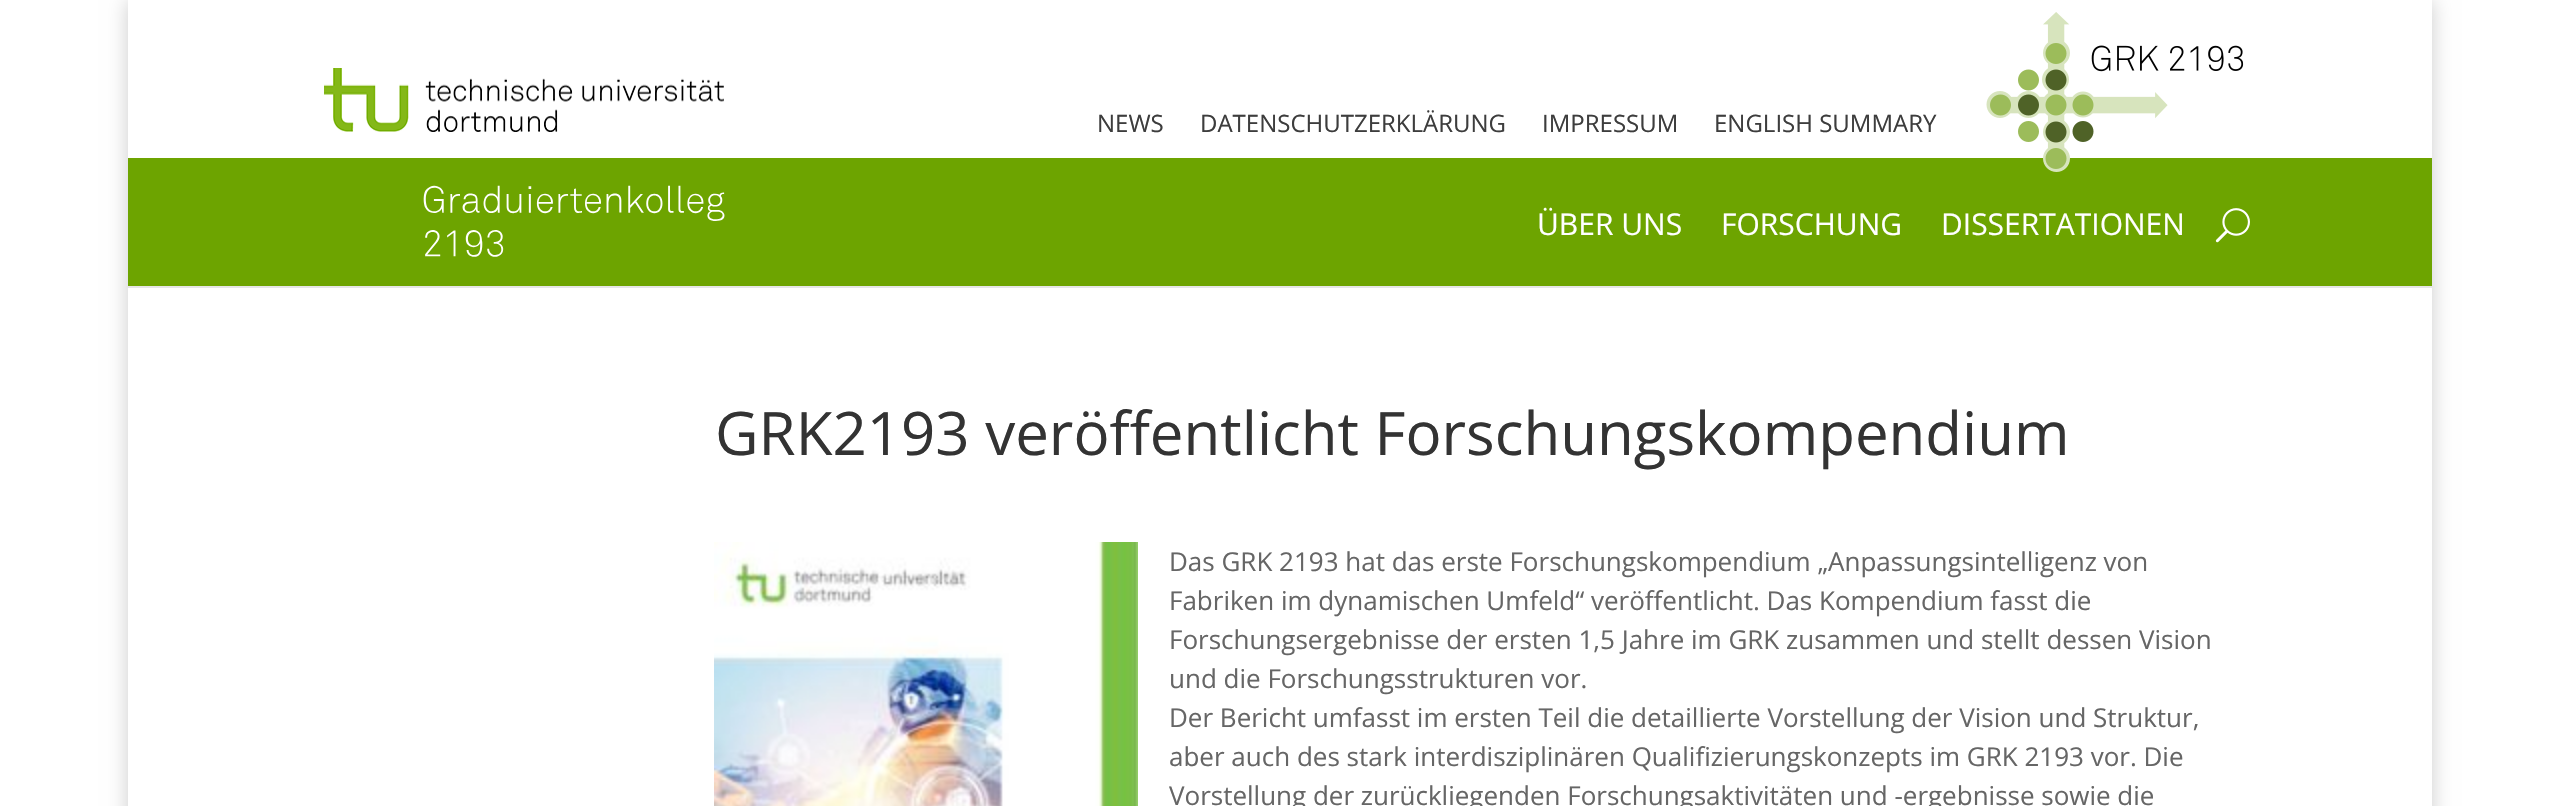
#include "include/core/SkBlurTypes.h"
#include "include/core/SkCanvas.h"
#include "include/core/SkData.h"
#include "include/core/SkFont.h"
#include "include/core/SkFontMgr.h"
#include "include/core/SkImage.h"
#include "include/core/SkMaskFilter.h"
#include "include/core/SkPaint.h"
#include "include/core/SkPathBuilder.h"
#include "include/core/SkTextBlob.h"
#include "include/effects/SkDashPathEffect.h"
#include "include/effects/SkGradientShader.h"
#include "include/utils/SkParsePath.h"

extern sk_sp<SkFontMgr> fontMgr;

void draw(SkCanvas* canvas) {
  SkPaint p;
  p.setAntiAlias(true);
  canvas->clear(SK_ColorWHITE);
  canvas->save();
  canvas->clipPath(SkPathBuilder(SkPathFillType::kEvenOdd).moveTo(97, 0).lineTo(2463, 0).lineTo(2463, 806).lineTo(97, 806).close().moveTo(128, 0).lineTo(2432, 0).lineTo(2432, 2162).lineTo(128, 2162).close().detach(), true);
  p.setColor(SkColorSetARGB(51, 0, 0, 0));
  p.setMaskFilter(SkMaskFilter::MakeBlur(kNormal_SkBlurStyle, 10));
  canvas->drawRect(SkRect::MakeLTRB(128, 0, 2432, 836), p);
  p.setMaskFilter(nullptr);
  canvas->restore();
  canvas->drawImageRect(SkImages::DeferredFromEncodedData(SkData::MakeFromFileName("images/1.png")), SkRect::MakeLTRB(324, 68, 724, 132), SkSamplingOptions());
  p.setColor(SkColorSetRGB(109, 164, 0));
  canvas->drawRect(SkRect::MakeLTRB(128, 158, 2432, 286), p);
  canvas->drawImageRect(SkImages::DeferredFromEncodedData(SkData::MakeFromFileName("images/2.png")), SkRect::MakeLTRB(1986, 12, 2244, 172), SkSamplingOptions());
  p.setColor(SkColorSetRGB(230, 230, 230));
  canvas->drawRect(SkRect::MakeLTRB(128, 286, 2432, 288), p);
  canvas->drawImageRect(SkImages::DeferredFromEncodedData(SkData::MakeFromFileName("images/3.png")), SkRect::MakeLTRB(423, 185, 725, 257), SkSamplingOptions());
  canvas->drawImageRect(SkImages::DeferredFromEncodedData(SkData::MakeFromFileName("images/4.png")), SkRect::MakeLTRB(2215, 208, 2250, 243), SkSamplingOptions());
  canvas->drawImageRect(SkImages::DeferredFromEncodedData(SkData::MakeFromFileName("images/5.png")), SkRect::MakeLTRB(714, 542, 1138, 806), SkSamplingOptions());
  SkFont font1(fontMgr->matchFamilyStyle("Open Sans", SkFontStyle::Normal()), 24);
  font1.setSubpixel(true);
  p.setColor(SkColorSetRGB(61, 61, 61));
  canvas->drawString("NEWS", 1097, 132, font1, p);
  canvas->drawString("DATENSCHUTZERKLÄRUNG", 1200, 132, font1, p);
  canvas->drawString("IMPRESSUM", 1542, 132, font1, p);
  canvas->drawString("ENGLISH SUMMARY", 1714, 132, font1, p);
  SkFont font2(fontMgr->matchFamilyStyle("Open Sans", SkFontStyle::Normal()), 30);
  font2.setSubpixel(true);
  p.setColor(SK_ColorWHITE);
  canvas->drawString("ÜBER UNS", 1537, 235, font2, p);
  canvas->drawString("FORSCHUNG", 1721, 235, font2, p);
  canvas->drawString("DISSERTATIONEN", 1941, 235, font2, p);
  SkFont font3(fontMgr->matchFamilyStyle("Open Sans", SkFontStyle::Normal()), 60);
  font3.setSubpixel(true);
  p.setColor(SkColorSetRGB(51, 51, 51));
  canvas->drawString("GRK2193 veröffentlicht Forschungskompendium", 715, 455, font3, p);
  SkFont font4(fontMgr->matchFamilyStyle("Open Sans", SkFontStyle::Normal()), 26);
  font4.setSubpixel(true);
  p.setColor(SkColorSetRGB(102, 102, 102));
  canvas->drawString("Das GRK 2193 hat das erste Forschungskompendium „Anpassungsintelligenz von", 1169, 571, font4, p);
  canvas->drawString("Fabriken im dynamischen Umfeld“ veröffentlicht. Das Kompendium fasst die", 1169, 610, font4, p);
  canvas->drawString("Forschungsergebnisse der ersten 1,5 Jahre im GRK zusammen und stellt dessen Vision", 1169, 649, font4, p);
  canvas->drawString("und die Forschungsstrukturen vor.", 1169, 688, font4, p);
  canvas->drawString("Der Bericht umfasst im ersten Teil die detaillierte Vorstellung der Vision und Struktur,", 1169, 727, font4, p);
  canvas->drawString("aber auch des stark interdisziplinären Qualifizierungskonzepts im GRK 2193 vor. Die", 1169, 766, font4, p);
  canvas->drawString("Vorstellung der zurückliegenden Forschungsaktivitäten und -ergebnisse sowie die", 1169, 805, font4, p);
}
